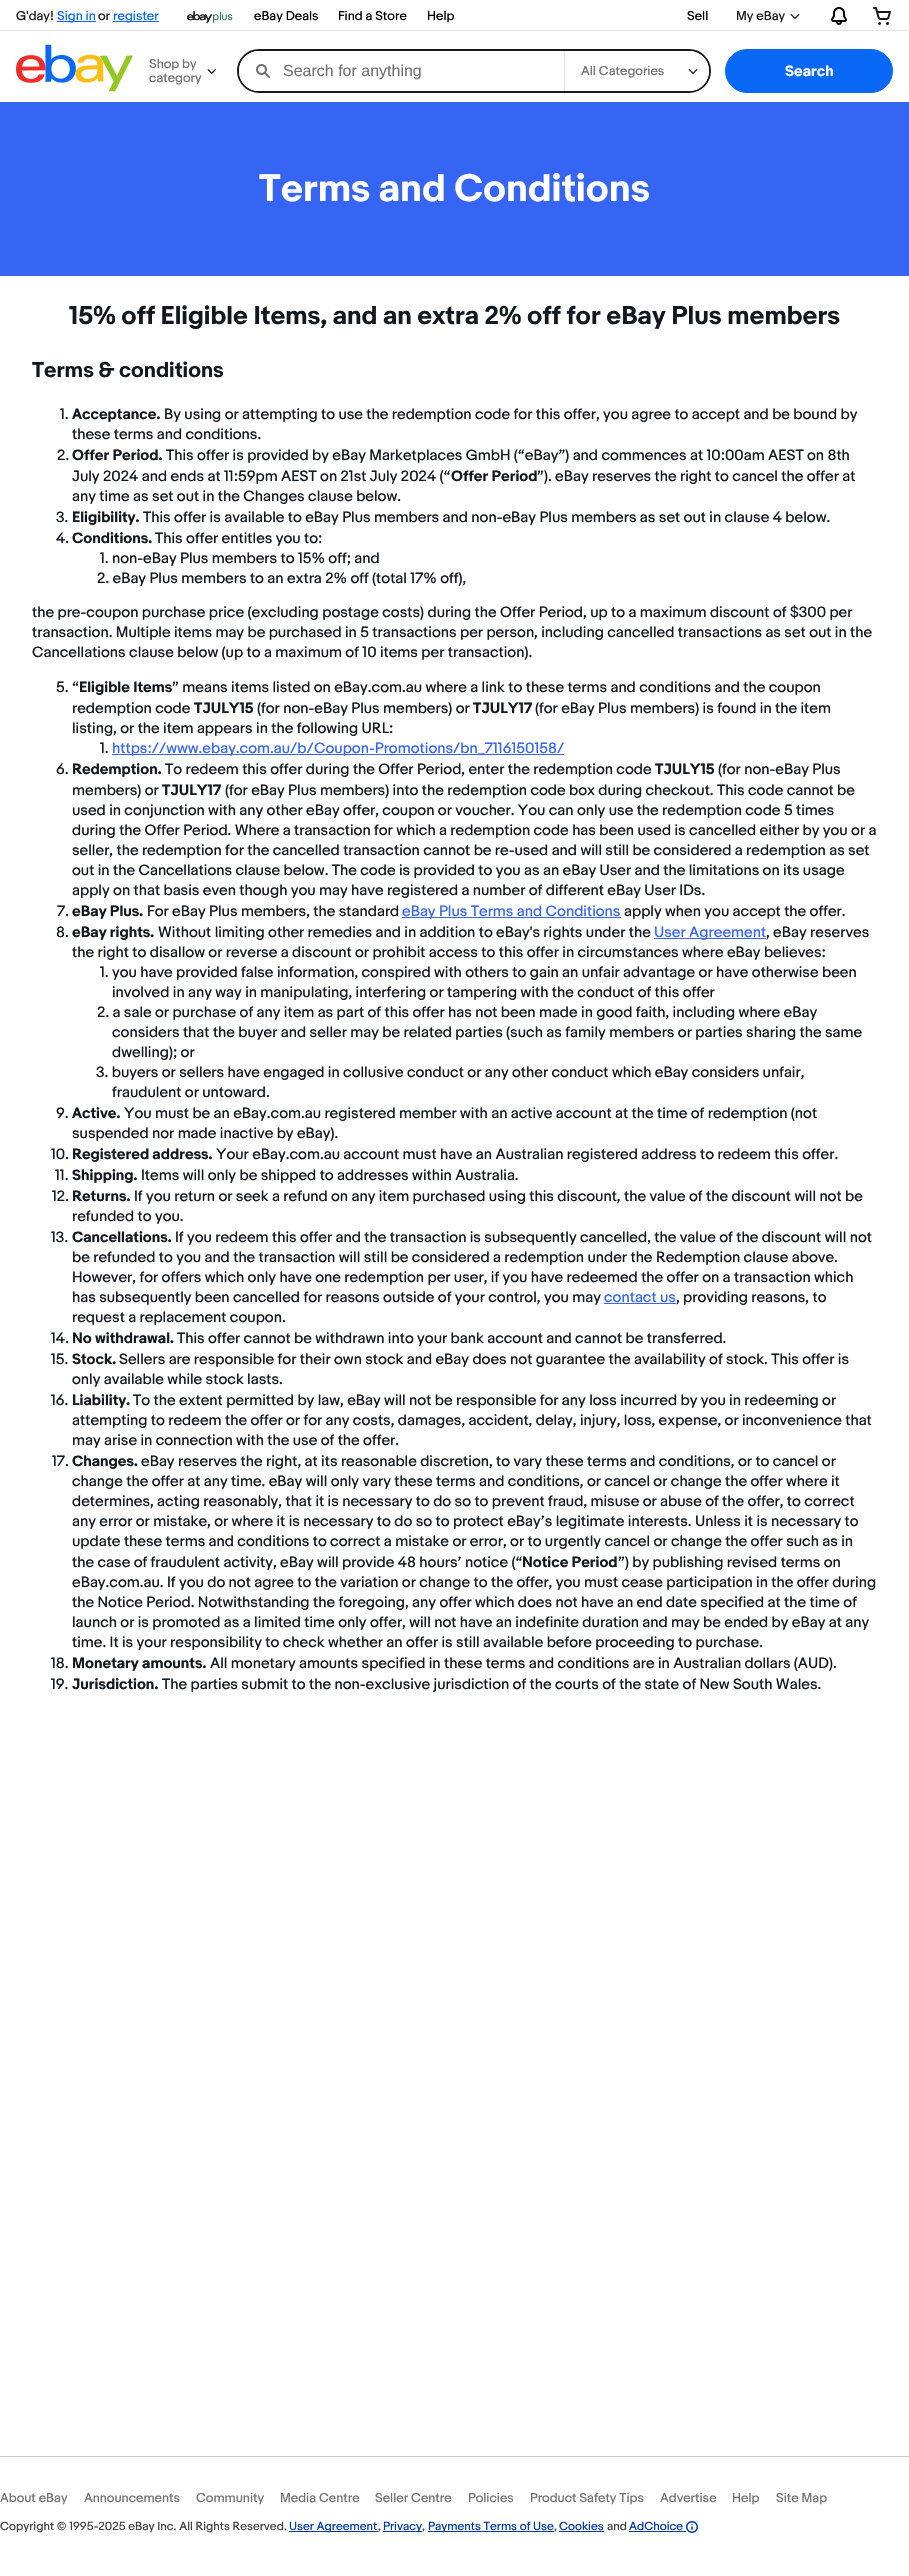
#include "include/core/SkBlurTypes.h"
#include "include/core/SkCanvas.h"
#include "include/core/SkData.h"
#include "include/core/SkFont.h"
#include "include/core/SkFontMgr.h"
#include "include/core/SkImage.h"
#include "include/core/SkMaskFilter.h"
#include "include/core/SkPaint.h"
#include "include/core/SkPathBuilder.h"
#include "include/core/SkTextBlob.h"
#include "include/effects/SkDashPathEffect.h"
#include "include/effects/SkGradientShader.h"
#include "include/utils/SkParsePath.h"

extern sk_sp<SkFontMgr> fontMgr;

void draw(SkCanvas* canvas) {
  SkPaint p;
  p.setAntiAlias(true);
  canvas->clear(SK_ColorWHITE);
  p.setColor(SkColorSetRGB(9, 104, 246));
  canvas->drawRect(SkRect::MakeLTRB(57, 21, 96, 22), p);
  canvas->drawRect(SkRect::MakeLTRB(113, 21, 159, 22), p);
  canvas->drawImageRect(SkImages::DeferredFromEncodedData(SkData::MakeFromFileName("images/1.png")), SkRect::MakeLTRB(187, 11, 233, 23), SkSamplingOptions());
  canvas->drawImageRect(SkImages::DeferredFromEncodedData(SkData::MakeFromFileName("images/2.png")), SkRect::MakeLTRB(790, 14, 800, 19), SkSamplingOptions());
  canvas->drawImageRect(SkImages::DeferredFromEncodedData(SkData::MakeFromFileName("images/3.png")), SkRect::MakeLTRB(831, 7, 847, 25), SkSamplingOptions());
  canvas->drawImageRect(SkImages::DeferredFromEncodedData(SkData::MakeFromFileName("images/4.png")), SkRect::MakeLTRB(873, 7, 891, 25), SkSamplingOptions());
  canvas->drawImageRect(SkImages::DeferredFromEncodedData(SkData::MakeFromFileName("images/5.png")), SkRect::MakeLTRB(16, 44, 133, 92), SkSamplingOptions());
  canvas->drawImageRect(SkImages::DeferredFromEncodedData(SkData::MakeFromFileName("images/6.png")), SkRect::MakeLTRB(207, 69, 216, 74), SkSamplingOptions());
  p.setStyle(SkPaint::kStroke_Style);
  p.setStrokeWidth(2);
  p.setColor(SkColorSetRGB(25, 25, 25));
  canvas->drawRoundRect(SkRect::MakeLTRB(238, 50, 710, 92), 21, 21, p);
  p.setStyle(SkPaint::kFill_Style);
  p.setColor(SkColorSetRGB(229, 229, 229));
  canvas->drawRect(SkRect::MakeLTRB(564, 51, 565, 91), p);
  p.setColor(SK_ColorWHITE);
  canvas->drawPath(SkPathBuilder().moveTo(259, 51).lineTo(564, 51).lineTo(564, 91).lineTo(259, 91).cubicTo(248, 91, 239, 82, 239, 71).cubicTo(239, 60, 248, 51, 259, 51).close().detach(), p);
  canvas->drawImageRect(SkImages::DeferredFromEncodedData(SkData::MakeFromFileName("images/7.png")), SkRect::MakeLTRB(256, 64, 270, 78), SkSamplingOptions());
  canvas->drawPath(SkPathBuilder().moveTo(565, 51).lineTo(689, 51).cubicTo(700, 51, 709, 60, 709, 71).cubicTo(709, 82, 700, 91, 689, 91).lineTo(565, 91).close().detach(), p);
  canvas->drawImageRect(SkImages::DeferredFromEncodedData(SkData::MakeFromFileName("images/2.png")), SkRect::MakeLTRB(688, 69, 698, 74), SkSamplingOptions());
  p.setColor(SkColorSetRGB(9, 104, 246));
  canvas->drawRoundRect(SkRect::MakeLTRB(725.5f, 49.5f, 892.5f, 92.5f), 21.5f, 21.5f, p);
  p.setStyle(SkPaint::kStroke_Style);
  p.setStrokeWidth(1);
  canvas->drawRoundRect(SkRect::MakeLTRB(725.5f, 49.5f, 892.5f, 92.5f), 21.5f, 21.5f, p);
  p.setStyle(SkPaint::kFill_Style);
  p.setColor(SkColorSetRGB(229, 229, 229));
  canvas->drawRect(SkRect::MakeLTRB(0, 30, 909, 31), p);
  p.setColor(SkColorSetRGB(54, 101, 243));
  canvas->drawRect(SkRect::MakeLTRB(0, 102, 909, 276), p);
  canvas->drawRect(SkRect::MakeLTRB(112, 754, 297, 755), p);
  canvas->drawRect(SkRect::MakeLTRB(297, 754, 564, 755), p);
  canvas->drawRect(SkRect::MakeLTRB(402, 917, 621, 918), p);
  canvas->drawRect(SkRect::MakeLTRB(654, 938, 766, 939), p);
  canvas->drawRect(SkRect::MakeLTRB(604, 1303, 676, 1304), p);
  p.setColor(SkColorSetRGB(204, 204, 204));
  canvas->drawRect(SkRect::MakeLTRB(0, 2456, 909, 2457), p);
  p.setColor(SkColorSetRGB(0, 58, 165));
  canvas->drawRect(SkRect::MakeLTRB(289, 2531, 378, 2532), p);
  canvas->drawRect(SkRect::MakeLTRB(383, 2531, 422, 2532), p);
  canvas->drawRect(SkRect::MakeLTRB(428, 2531, 554, 2532), p);
  canvas->drawRect(SkRect::MakeLTRB(559, 2531, 604, 2532), p);
  canvas->drawRect(SkRect::MakeLTRB(629, 2531, 686, 2532), p);
  canvas->drawImageRect(SkImages::DeferredFromEncodedData(SkData::MakeFromFileName("images/8.png")), SkRect::MakeLTRB(686, 2521, 698, 2533), SkSamplingOptions());
  SkFont font1(fontMgr->matchFamilyStyle("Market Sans", SkFontStyle::Normal()), 12);
  font1.setSubpixel(true);
  p.setColor(SkColorSetRGB(25, 25, 25));
  canvas->drawString("G'day!", 16, 20, font1, p);
  p.setColor(SkColorSetRGB(9, 104, 246));
  canvas->drawString("Sign in", 57, 20, font1, p);
  p.setColor(SkColorSetRGB(25, 25, 25));
  canvas->drawString("or", 98, 20, font1, p);
  p.setColor(SkColorSetRGB(9, 104, 246));
  canvas->drawString("register", 113, 20, font1, p);
  p.setColor(SK_ColorBLACK);
  canvas->drawString("eBay Deals", 254, 20, font1, p);
  canvas->drawString("Find a Store", 338, 20, font1, p);
  canvas->drawString("Help", 427, 20, font1, p);
  canvas->drawString("Sell", 687, 20, font1, p);
  p.setColor(SkColorSetRGB(25, 25, 25));
  canvas->drawString("My eBay", 736, 20, font1, p);
  p.setColor(SkColorSetRGB(112, 112, 112));
  canvas->drawString("Shop by", 149, 68, font1, p);
  canvas->drawString("category", 149, 82, font1, p);
  SkFont font2(fontMgr->matchFamilyStyle("Liberation Sans", SkFontStyle::Normal()), 16);
  font2.setSubpixel(true);
  canvas->drawString("Search for anything", 283, 76, font2, p);
  canvas->drawString("All Categories", 581, 75, font1, p);
  SkFont font3(fontMgr->matchFamilyStyle("Market Sans", SkFontStyle::Bold()), 14);
  font3.setSubpixel(true);
  p.setColor(SK_ColorWHITE);
  canvas->drawString("Search", 785, 76, font3, p);
  SkFont font4(fontMgr->matchFamilyStyle("Market Sans", SkFontStyle::Bold()), 36);
  font4.setSubpixel(true);
  canvas->drawString("Terms and Conditions", 259, 201, font4, p);
  SkFont font5(fontMgr->matchFamilyStyle("Market Sans", SkFontStyle::Bold()), 24);
  font5.setSubpixel(true);
  p.setColor(SkColorSetRGB(17, 24, 32));
  canvas->drawString("15% off Eligible Items, and an extra 2% off for eBay Plus members", 69, 324, font5, p);
  SkFont font6(fontMgr->matchFamilyStyle("Market Sans", SkFontStyle::Bold()), 20);
  font6.setSubpixel(true);
  canvas->drawString("Terms & conditions", 32, 377, font6, p);
  SkFont font7(fontMgr->matchFamilyStyle("Market Sans", SkFontStyle::Normal()), 14);
  font7.setSubpixel(true);
  canvas->drawString("1.", 60, 419, font7, p);
  canvas->drawString("Acceptance.", 72, 419, font3, p);
  canvas->drawString("By using or attempting to use the redemption code for this offer, you agree to accept and be bound by", 164, 419, font7, p);
  canvas->drawString("these terms and conditions.", 72, 439, font7, p);
  canvas->drawString("2.", 57, 460, font7, p);
  canvas->drawString("Offer Period.", 72, 460, font3, p);
  canvas->drawString("This offer is provided by eBay Marketplaces GmbH (“eBay”) and commences at 10:00am AEST on 8th", 166, 460, font7, p);
  canvas->drawString("July 2024 and ends at 11:59pm AEST on 21st July 2024 (“", 72, 481, font7, p);
  canvas->drawString("Offer Period", 451, 481, font3, p);
  canvas->drawString("”). eBay reserves the right to cancel the offer at", 537, 481, font7, p);
  canvas->drawString("any time as set out in the Changes clause below.", 72, 501, font7, p);
  canvas->drawString("3.", 56, 522, font7, p);
  canvas->drawString("Eligibility.", 72, 522, font3, p);
  canvas->drawString("This offer is available to eBay Plus members and non-eBay Plus members as set out in clause 4 below.", 143, 522, font7, p);
  canvas->drawString("4.", 56, 543, font7, p);
  canvas->drawString("Conditions.", 72, 543, font3, p);
  canvas->drawString("This offer entitles you to:", 155, 543, font7, p);
  canvas->drawString("1. non-eBay Plus members to 15% off; and", 100, 563, font7, p);
  canvas->drawString("2. eBay Plus members to an extra 2% off (total 17% off),", 97, 583, font7, p);
  canvas->drawString("the pre-coupon purchase price (excluding postage costs) during the Offer Period, up to a maximum discount of $300 per", 32, 617, font7, p);
  canvas->drawString("transaction. Multiple items may be purchased in 5 transactions per person, including cancelled transactions as set out in the", 32, 637, font7, p);
  canvas->drawString("Cancellations clause below (up to a maximum of 10 items per transaction).", 32, 657, font7, p);
  canvas->drawString("5. “", 56, 692, font7, p);
  canvas->drawString("Eligible Items", 79, 692, font3, p);
  canvas->drawString("” means items listed on eBay.com.au where a link to these terms and conditions and the coupon", 172, 692, font7, p);
  canvas->drawString("redemption code", 72, 713, font7, p);
  canvas->drawString("TJULY15", 194, 713, font3, p);
  canvas->drawString("(for non-eBay Plus members) or", 257, 713, font7, p);
  canvas->drawString("TJULY17", 473, 713, font3, p);
  canvas->drawString("(for eBay Plus members) is found in the item", 535, 713, font7, p);
  canvas->drawString("listing, or the item appears in the following URL:", 72, 733, font7, p);
  canvas->drawString("1.", 100, 753, font7, p);
  p.setColor(SkColorSetRGB(54, 101, 243));
  canvas->drawString("https://www.ebay.com.au/b/", 112, 753, font7, p);
  canvas->drawString("Coupon-Promotions/bn_7116150158/", 314, 753, font7, p);
  p.setColor(SkColorSetRGB(17, 24, 32));
  canvas->drawString("6.", 56, 774, font7, p);
  canvas->drawString("Redemption.", 72, 774, font3, p);
  canvas->drawString("To redeem this offer during the Offer Period, enter the redemption code", 165, 774, font7, p);
  canvas->drawString("TJULY15", 655, 774, font3, p);
  canvas->drawString("(for non-eBay Plus", 718, 774, font7, p);
  canvas->drawString("members) or", 72, 795, font7, p);
  canvas->drawString("TJULY17", 162, 795, font3, p);
  canvas->drawString("(for eBay Plus members) into the redemption code box during checkout. This code cannot be", 225, 795, font7, p);
  canvas->drawString("used in conjunction with any other eBay offer, coupon or voucher. You can only use the redemption code 5 times", 72, 815, font7, p);
  canvas->drawString("during the Offer Period. Where a transaction for which a redemption code has been used is cancelled either by you or a", 72, 835, font7, p);
  canvas->drawString("seller, the redemption for the cancelled transaction cannot be re-used and will still be considered a redemption as set", 72, 855, font7, p);
  canvas->drawString("out in the Cancellations clause below. The code is provided to you as an eBay User and the limitations on its usage", 72, 875, font7, p);
  canvas->drawString("apply on that basis even though you may have registered a number of different eBay User IDs.", 72, 895, font7, p);
  canvas->drawString("7.", 57, 916, font7, p);
  canvas->drawString("eBay Plus.", 72, 916, font3, p);
  canvas->drawString("For eBay Plus members, the standard", 147, 916, font7, p);
  p.setColor(SkColorSetRGB(54, 101, 243));
  canvas->drawString("eBay Plus Terms and Conditions", 402, 916, font7, p);
  p.setColor(SkColorSetRGB(17, 24, 32));
  canvas->drawString("apply when you accept the offer.", 624, 916, font7, p);
  canvas->drawString("8.", 56, 937, font7, p);
  canvas->drawString("eBay rights.", 72, 937, font3, p);
  canvas->drawString("Without limiting other remedies and in addition to eBay's rights under the", 158, 937, font7, p);
  p.setColor(SkColorSetRGB(54, 101, 243));
  canvas->drawString("User Agreement", 654, 937, font7, p);
  p.setColor(SkColorSetRGB(17, 24, 32));
  canvas->drawString(", eBay reserves", 766, 937, font7, p);
  canvas->drawString("the right to disallow or reverse a discount or prohibit access to this offer in circumstances where eBay believes:", 72, 957, font7, p);
  canvas->drawString("1. you have provided false information, conspired with others to gain an unfair advantage or have otherwise been", 100, 977, font7, p);
  canvas->drawString("involved in any way in manipulating, interfering or tampering with the conduct of this offer", 112, 997, font7, p);
  canvas->drawString("2. a sale or purchase of any item as part of this offer has not been made in good faith, including where eBay", 97, 1017, font7, p);
  canvas->drawString("considers that the buyer and seller may be related parties (such as family members or parties sharing the same", 112, 1037, font7, p);
  canvas->drawString("dwelling); or", 112, 1057, font7, p);
  canvas->drawString("3. buyers or sellers have engaged in collusive conduct or any other conduct which eBay considers unfair,", 96, 1077, font7, p);
  canvas->drawString("fraudulent or untoward.", 112, 1097, font7, p);
  canvas->drawString("9.", 56, 1118, font7, p);
  canvas->drawString("Active.", 72, 1118, font3, p);
  canvas->drawString("You must be an eBay.com.au registered member with an active account at the time of redemption (not", 124, 1118, font7, p);
  canvas->drawString("suspended nor made inactive by eBay).", 72, 1138, font7, p);
  canvas->drawString("10.", 51, 1159, font7, p);
  canvas->drawString("Registered address.", 72, 1159, font3, p);
  canvas->drawString("Your eBay.com.au account must have an Australian registered address to redeem this offer.", 216, 1159, font7, p);
  canvas->drawString("11.", 55, 1180, font7, p);
  canvas->drawString("Shipping.", 72, 1180, font3, p);
  canvas->drawString("Items will only be shipped to addresses within Australia.", 141, 1180, font7, p);
  canvas->drawString("12.", 52, 1201, font7, p);
  canvas->drawString("Returns.", 72, 1201, font3, p);
  canvas->drawString("If you return or seek a refund on any item purchased using this discount, the value of the discount will not be", 134, 1201, font7, p);
  canvas->drawString("refunded to you.", 72, 1221, font7, p);
  canvas->drawString("13.", 51, 1242, font7, p);
  canvas->drawString("Cancellations.", 72, 1242, font3, p);
  canvas->drawString("If you redeem this offer and the transaction is subsequently cancelled, the value of the discount will not", 175, 1242, font7, p);
  canvas->drawString("be refunded to you and the transaction will still be considered a redemption under the Redemption clause above.", 72, 1262, font7, p);
  canvas->drawString("However, for offers which only have one redemption per user, if you have redeemed the offer on a transaction which", 72, 1282, font7, p);
  canvas->drawString("has subsequently been cancelled for reasons outside of your control, you may", 72, 1302, font7, p);
  p.setColor(SkColorSetRGB(54, 101, 243));
  canvas->drawString("contact us", 604, 1302, font7, p);
  p.setColor(SkColorSetRGB(17, 24, 32));
  canvas->drawString(", providing reasons, to", 676, 1302, font7, p);
  canvas->drawString("request a replacement coupon.", 72, 1322, font7, p);
  canvas->drawString("14.", 51, 1343, font7, p);
  canvas->drawString("No withdrawal.", 72, 1343, font3, p);
  canvas->drawString("This offer cannot be withdrawn into your bank account and cannot be transferred.", 177, 1343, font7, p);
  canvas->drawString("15.", 51, 1364, font7, p);
  canvas->drawString("Stock.", 72, 1364, font3, p);
  canvas->drawString("Sellers are responsible for their own stock and eBay does not guarantee the availability of stock. This offer is", 119, 1364, font7, p);
  canvas->drawString("only available while stock lasts.", 72, 1384, font7, p);
  canvas->drawString("16.", 51, 1405, font7, p);
  canvas->drawString("Liability.", 72, 1405, font3, p);
  canvas->drawString("To the extent permitted by law, eBay will not be responsible for any loss incurred by you in redeeming or", 133, 1405, font7, p);
  canvas->drawString("attempting to redeem the offer or for any costs, damages, accident, delay, injury, loss, expense, or inconvenience that", 72, 1425, font7, p);
  canvas->drawString("may arise in connection with the use of the offer.", 72, 1445, font7, p);
  canvas->drawString("17.", 52, 1466, font7, p);
  canvas->drawString("Changes.", 72, 1466, font3, p);
  canvas->drawString("eBay reserves the right, at its reasonable discretion, to vary these terms and conditions, or to cancel or", 141, 1466, font7, p);
  canvas->drawString("change the offer at any time. eBay will only vary these terms and conditions, or cancel or change the offer where it", 72, 1486, font7, p);
  canvas->drawString("determines, acting reasonably, that it is necessary to do so to prevent fraud, misuse or abuse of the offer, to correct", 72, 1506, font7, p);
  canvas->drawString("any error or mistake, or where it is necessary to do so to protect eBay’s legitimate interests. Unless it is necessary to", 72, 1526, font7, p);
  canvas->drawString("update these terms and conditions to correct a mistake or error, or to urgently cancel or change the offer such as in", 72, 1546, font7, p);
  canvas->drawString("the case of fraudulent activity, eBay will provide 48 hours’ notice (“", 72, 1567, font7, p);
  canvas->drawString("Notice Period", 522, 1567, font3, p);
  canvas->drawString("”) by publishing revised terms on", 618, 1567, font7, p);
  canvas->drawString("eBay.com.au. If you do not agree to the variation or change to the offer, you must cease participation in the offer during", 72, 1587, font7, p);
  canvas->drawString("the Notice Period. Notwithstanding the foregoing, any offer which does not have an end date specified at the time of", 72, 1607, font7, p);
  canvas->drawString("launch or is promoted as a limited time only offer, will not have an indefinite duration and may be ended by eBay at any", 72, 1627, font7, p);
  canvas->drawString("time. It is your responsibility to check whether an offer is still available before proceeding to purchase.", 72, 1647, font7, p);
  canvas->drawString("18.", 51, 1668, font7, p);
  canvas->drawString("Monetary amounts.", 72, 1668, font3, p);
  canvas->drawString("All monetary amounts specified in these terms and conditions are in Australian dollars (AUD).", 210, 1668, font7, p);
  canvas->drawString("19.", 51, 1689, font7, p);
  canvas->drawString("Jurisdiction.", 72, 1689, font3, p);
  canvas->drawString("The parties submit to the non-exclusive jurisdiction of the courts of the state of New South Wales.", 162, 1689, font7, p);
  p.setColor(SkColorSetRGB(112, 112, 112));
  canvas->drawString("About eBay", 0, 2502, font1, p);
  canvas->drawString("Announcements", 84, 2502, font1, p);
  canvas->drawString("Community", 196, 2502, font1, p);
  canvas->drawString("Media Centre", 280, 2502, font1, p);
  canvas->drawString("Seller Centre", 375, 2502, font1, p);
  canvas->drawString("Policies", 468, 2502, font1, p);
  canvas->drawString("Product Safety Tips", 530, 2502, font1, p);
  canvas->drawString("Advertise", 660, 2502, font1, p);
  canvas->drawString("Help", 732, 2502, font1, p);
  canvas->drawString("Site Map", 776, 2502, font1, p);
  SkFont font8(fontMgr->matchFamilyStyle("Market Sans", SkFontStyle::Normal()), 11);
  font8.setSubpixel(true);
  p.setColor(SkColorSetRGB(65, 65, 63));
  canvas->drawString("Copyright © 1995-2025 eBay Inc. All Rights Reserved.", 0, 2530, font8, p);
  p.setColor(SkColorSetRGB(0, 58, 165));
  canvas->drawString("User Agreement", 289, 2530, font8, p);
  p.setColor(SkColorSetRGB(65, 65, 63));
  canvas->drawString(",", 378, 2530, font8, p);
  p.setColor(SkColorSetRGB(0, 58, 165));
  canvas->drawString("Privacy", 383, 2530, font8, p);
  p.setColor(SkColorSetRGB(65, 65, 63));
  canvas->drawString(",", 422, 2530, font8, p);
  p.setColor(SkColorSetRGB(0, 58, 165));
  canvas->drawString("Payments Terms of Use", 428, 2530, font8, p);
  p.setColor(SkColorSetRGB(65, 65, 63));
  canvas->drawString(",", 554, 2530, font8, p);
  p.setColor(SkColorSetRGB(0, 58, 165));
  canvas->drawString("Cookies", 559, 2530, font8, p);
  p.setColor(SkColorSetRGB(65, 65, 63));
  canvas->drawString("and", 607, 2530, font8, p);
  p.setColor(SkColorSetRGB(0, 58, 165));
  canvas->drawString("AdChoice", 629, 2530, font8, p);
}
